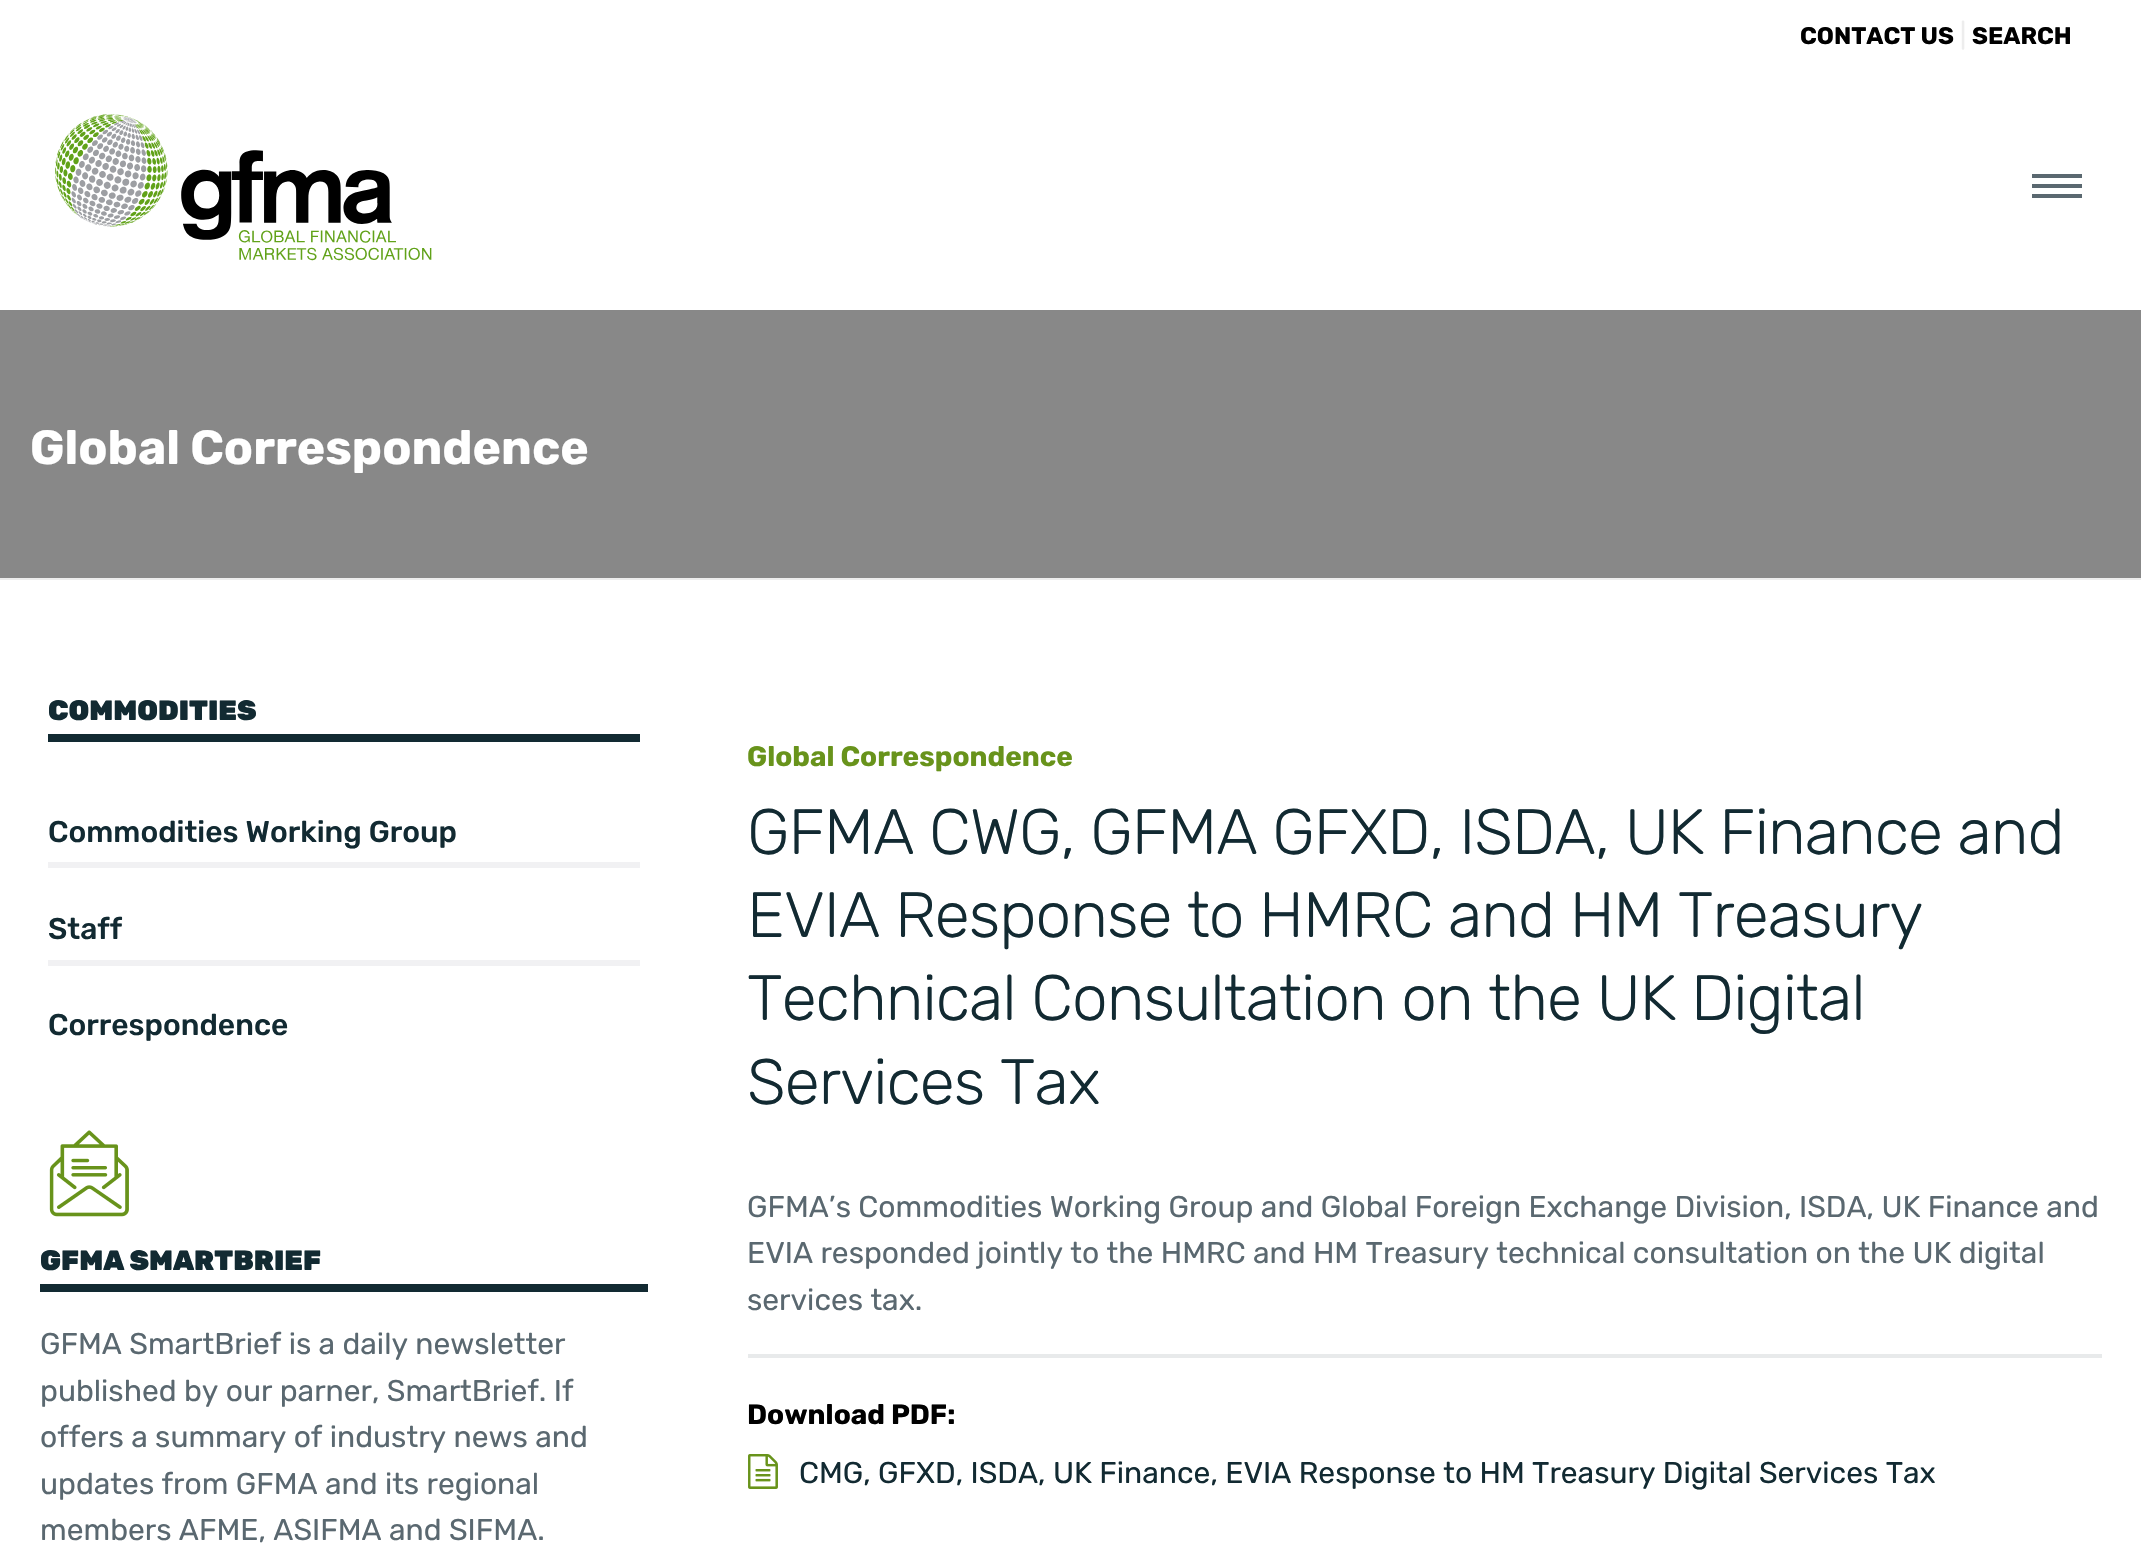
#include "include/core/SkBlurTypes.h"
#include "include/core/SkCanvas.h"
#include "include/core/SkData.h"
#include "include/core/SkFont.h"
#include "include/core/SkFontMgr.h"
#include "include/core/SkImage.h"
#include "include/core/SkMaskFilter.h"
#include "include/core/SkPaint.h"
#include "include/core/SkPathBuilder.h"
#include "include/core/SkTextBlob.h"
#include "include/effects/SkDashPathEffect.h"
#include "include/effects/SkGradientShader.h"
#include "include/utils/SkParsePath.h"

extern sk_sp<SkFontMgr> fontMgr;

void draw(SkCanvas* canvas) {
  SkPaint p;
  p.setAntiAlias(true);
  auto spacedText = [&](const char* s, float x, float y, const SkFont& font, const SkPaint& ink, float letter, float word) {
    std::vector<SkGlyphID> glyphs(font.countText(s, strlen(s), SkTextEncoding::kUTF8));
    std::vector<float> xs(glyphs.size());
    font.textToGlyphs(s, strlen(s), SkTextEncoding::kUTF8, glyphs);
    font.getXPos(glyphs, xs, x);
    float extra = 0;
    for (size_t i = 0; i < glyphs.size(); i++) {
      xs[i] += extra;
      extra += letter + word * (glyphs[i] == font.unicharToGlyph(' '));
    }
    canvas->drawTextBlob(SkTextBlob::MakeFromPosHGlyphs(glyphs, xs, y, font), 0, 0, ink);
  };
  canvas->clear(SK_ColorWHITE);
  p.setColor(SkColorSetRGB(136, 136, 136));
  canvas->drawRect(SkRect::MakeLTRB(0, 310, 2141, 578), p);
  p.setColor(SkColorSetRGB(237, 237, 237));
  canvas->drawRect(SkRect::MakeLTRB(0, 578, 2141, 580), p);
  canvas->drawImageRect(SkImages::DeferredFromEncodedData(SkData::MakeFromFileName("images/1.png")), SkRect::MakeLTRB(55, 114, 432, 261), SkSamplingOptions());
  p.setColor(SkColorSetRGB(90, 104, 112));
  canvas->drawRect(SkRect::MakeLTRB(2032, 174, 2082, 178), p);
  canvas->drawRect(SkRect::MakeLTRB(2032, 184, 2082, 188), p);
  canvas->drawRect(SkRect::MakeLTRB(2032, 194, 2082, 198), p);
  p.setColor(SkColorSetRGB(18, 42, 50));
  canvas->drawRect(SkRect::MakeLTRB(48, 734, 640, 742), p);
  p.setColor(SkColorSetRGB(241, 241, 243));
  canvas->drawRect(SkRect::MakeLTRB(48, 862, 640, 868), p);
  canvas->drawRect(SkRect::MakeLTRB(48, 960, 640, 966), p);
  canvas->drawImageRect(SkImages::DeferredFromEncodedData(SkData::MakeFromFileName("images/2.png")), SkRect::MakeLTRB(49, 1130, 129, 1217), SkSamplingOptions());
  p.setColor(SkColorSetRGB(18, 42, 50));
  canvas->drawRect(SkRect::MakeLTRB(40, 1284, 648, 1292), p);
  p.setColor(SkColorSetRGB(232, 234, 235));
  canvas->drawRect(SkRect::MakeLTRB(748, 1354, 2102, 1358), p);
  canvas->drawImageRect(SkImages::DeferredFromEncodedData(SkData::MakeFromFileName("images/3.png")), SkRect::MakeLTRB(748, 1454, 778, 1489), SkSamplingOptions());
  SkFont font1(fontMgr->matchFamilyStyle("Rubik", SkFontStyle::Bold()), 24);
  font1.setSubpixel(true);
  p.setColor(SK_ColorBLACK);
  canvas->drawString("CONTACT US", 1800, 44, font1, p);
  SkFont font2(fontMgr->matchFamilyStyle("Rubik", SkFontStyle::Normal()), 26);
  font2.setSubpixel(true);
  p.setColor(SkColorSetRGB(237, 237, 237));
  canvas->drawString("|", 1960, 44, font2, p);
  p.setColor(SK_ColorBLACK);
  canvas->drawString("SEARCH", 1972, 44, font1, p);
  SkFont font3(fontMgr->matchFamilyStyle("Rubik", SkFontStyle::Bold()), 48);
  font3.setSubpixel(true);
  p.setColor(SK_ColorWHITE);
  canvas->drawString("Global Correspondence", 30, 464, font3, p);
  SkFont font4(fontMgr->matchFamilyStyle("Rubik", SkFontStyle(900, SkFontStyle::kNormal_Width, SkFontStyle::kUpright_Slant)), 28);
  font4.setSubpixel(true);
  p.setColor(SkColorSetRGB(18, 42, 50));
  canvas->drawString("COMMODITIES", 48, 720, font4, p);
  SkFont font5(fontMgr->matchFamilyStyle("Rubik", SkFontStyle(500, SkFontStyle::kNormal_Width, SkFontStyle::kUpright_Slant)), 30);
  font5.setSubpixel(true);
  canvas->drawString("Commodities Working Group", 48, 842, font5, p);
  canvas->drawString("Staff", 48, 939, font5, p);
  canvas->drawString("Correspondence", 48, 1035, font5, p);
  canvas->drawString("GFMA SMARTBRIEF", 40, 1270, font4, p);
  SkFont font6(fontMgr->matchFamilyStyle("Rubik", SkFontStyle::Normal()), 30);
  font6.setSubpixel(true);
  p.setColor(SkColorSetRGB(90, 104, 112));
  canvas->drawString("GFMA SmartBrief is a daily newsletter", 40, 1354, font6, p);
  canvas->drawString("published by our parner, SmartBrief. If", 40, 1401, font6, p);
  canvas->drawString("offers a summary of industry news and", 40, 1447, font6, p);
  canvas->drawString("updates from GFMA and its regional", 40, 1494, font6, p);
  canvas->drawString("members AFME, ASIFMA and SIFMA.", 40, 1540, font6, p);
  SkFont font7(fontMgr->matchFamilyStyle("Rubik", SkFontStyle::Bold()), 28);
  font7.setSubpixel(true);
  p.setColor(SkColorSetRGB(104, 147, 27));
  canvas->drawString("Global Correspondence", 747, 766, font7, p);
  SkFont font8(fontMgr->matchFamilyStyle("Rubik", SkFontStyle(300, SkFontStyle::kNormal_Width, SkFontStyle::kUpright_Slant)), 64);
  font8.setSubpixel(true);
  p.setColor(SkColorSetRGB(18, 42, 50));
  spacedText("GFMA CWG, GFMA GFXD, ISDA, UK Finance and", 747, 854, font8, p, -1, 0);
  spacedText("EVIA Response to HMRC and HM Treasury", 747, 937, font8, p, -1, 0);
  spacedText("Technical Consultation on the UK Digital", 747, 1020, font8, p, -1, 0);
  spacedText("Services Tax", 747, 1104, font8, p, -1, 0);
  p.setColor(SkColorSetRGB(90, 104, 112));
  canvas->drawString("GFMA’s Commodities Working Group and Global Foreign Exchange Division, ISDA, UK Finance and", 747, 1217, font6, p);
  canvas->drawString("EVIA responded jointly to the HMRC and HM Treasury technical consultation on the UK digital", 747, 1263, font6, p);
  canvas->drawString("services tax.", 747, 1310, font6, p);
  p.setColor(SK_ColorBLACK);
  canvas->drawString("Download PDF:", 747, 1424, font7, p);
  p.setColor(SkColorSetRGB(18, 42, 50));
  canvas->drawString("CMG, GFXD, ISDA, UK Finance, EVIA Response to HM Treasury Digital Services Tax", 799, 1483, font6, p);
}
